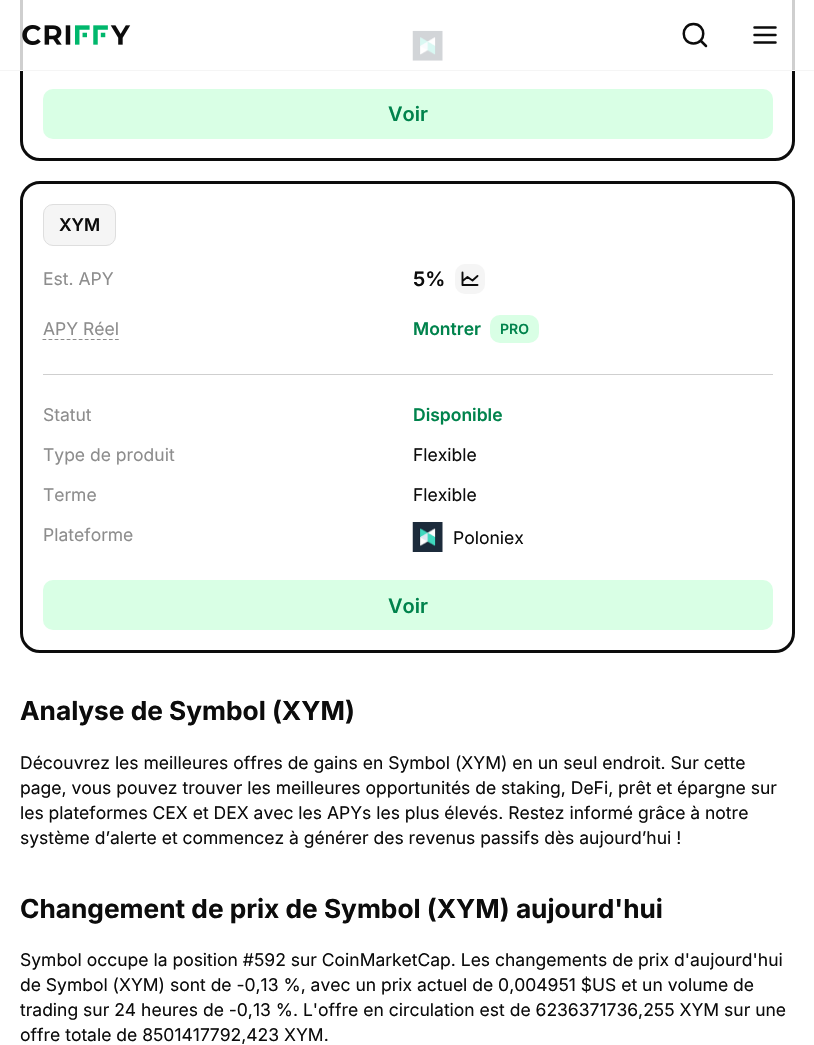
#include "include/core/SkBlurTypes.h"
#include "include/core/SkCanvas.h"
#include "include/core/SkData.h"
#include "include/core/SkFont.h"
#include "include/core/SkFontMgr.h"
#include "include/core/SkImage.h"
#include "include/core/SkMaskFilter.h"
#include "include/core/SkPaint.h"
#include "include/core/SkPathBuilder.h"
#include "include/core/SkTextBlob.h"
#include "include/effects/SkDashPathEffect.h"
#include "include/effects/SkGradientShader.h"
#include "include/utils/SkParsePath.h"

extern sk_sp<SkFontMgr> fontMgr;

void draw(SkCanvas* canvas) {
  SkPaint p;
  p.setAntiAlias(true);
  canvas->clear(SK_ColorWHITE);
  p.setStyle(SkPaint::kStroke_Style);
  p.setStrokeWidth(3);
  p.setColor(SkColorSetRGB(12, 12, 12));
  canvas->drawRoundRect(SkRect::MakeLTRB(21.5f, -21.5f, 793.5f, 159.5f), 18.5f, 18.5f, p);
  canvas->drawImageRect(SkImages::DeferredFromEncodedData(SkData::MakeFromFileName("images/2.png")), SkRect::MakeLTRB(412, 30, 443, 61), SkSamplingOptions());
  p.setStyle(SkPaint::kFill_Style);
  p.setColor(SkColorSetARGB(204, 255, 255, 255));
  canvas->drawRect(SkRect::MakeLTRB(20, 0, 795, 70), p);
  p.setColor(SkColorSetRGB(245, 245, 245));
  canvas->drawRect(SkRect::MakeLTRB(0, 70, 814, 71), p);
  canvas->drawImageRect(SkImages::DeferredFromEncodedData(SkData::MakeFromFileName("images/1.png")), SkRect::MakeLTRB(22, 25, 131, 45), SkSamplingOptions());
  p.setStyle(SkPaint::kStroke_Style);
  p.setStrokeWidth(2.5f);
  p.setStrokeCap(SkPaint::kRound_Cap);
  p.setStrokeJoin(SkPaint::kRound_Join);
  p.setColor(SkColorSetRGB(12, 12, 12));
  canvas->drawPath(SkPathBuilder().moveTo(693.5f, 43.5f).cubicTo(706.5f, 43.5f, 706.5f, 24, 693.5f, 24).cubicTo(680.5f, 24, 680.5f, 43.5f, 693.5f, 43.5f).close().moveTo(700.5f, 40.5f).lineTo(706, 46).detach(), p);
  canvas->drawPath(SkPathBuilder().moveTo(754.5f, 35).lineTo(775.5f, 35).moveTo(754.5f, 27.5f).lineTo(775.5f, 27.5f).moveTo(754.5f, 42.5f).lineTo(775.5f, 42.5f).detach(), p);
  p.setStyle(SkPaint::kFill_Style);
  p.setColor(SkColorSetRGB(217, 255, 229));
  canvas->drawRoundRect(SkRect::MakeLTRB(43, 89, 773, 139), 10, 10, p);
  p.setStyle(SkPaint::kStroke_Style);
  p.setStrokeWidth(3);
  p.setStrokeCap(SkPaint::kButt_Cap);
  p.setStrokeJoin(SkPaint::kMiter_Join);
  p.setColor(SkColorSetRGB(12, 12, 12));
  canvas->drawRoundRect(SkRect::MakeLTRB(21.5f, 182.5f, 793.5f, 651.5f), 18.5f, 18.5f, p);
  p.setStyle(SkPaint::kFill_Style);
  p.setColor(SkColorSetRGB(245, 245, 245));
  canvas->drawRoundRect(SkRect::MakeLTRB(43.5f, 204.5f, 115.5f, 245.5f), 9.5f, 9.5f, p);
  p.setStyle(SkPaint::kStroke_Style);
  p.setStrokeWidth(1);
  p.setColor(SkColorSetRGB(222, 222, 222));
  canvas->drawRoundRect(SkRect::MakeLTRB(43.5f, 204.5f, 115.5f, 245.5f), 9.5f, 9.5f, p);
  p.setStyle(SkPaint::kFill_Style);
  p.setColor(SkColorSetRGB(245, 245, 245));
  canvas->drawRoundRect(SkRect::MakeLTRB(455, 264, 485, 294), 10, 10, p);
  p.setStyle(SkPaint::kStroke_Style);
  p.setStrokeWidth(1.9f);
  p.setStrokeCap(SkPaint::kRound_Cap);
  p.setStrokeJoin(SkPaint::kRound_Join);
  p.setColor(SkColorSetRGB(12, 12, 12));
  canvas->drawPath(SkPathBuilder().moveTo(477.5f, 285).lineTo(462.5f, 285).lineTo(462.5f, 272.5f).moveTo(477.5f, 276).lineTo(472.5f, 280.5f).lineTo(467.5f, 277).lineTo(462.5f, 281).detach(), p);
  p.setStrokeWidth(1.2f);
  p.setStrokeCap(SkPaint::kButt_Cap);
  p.setStrokeJoin(SkPaint::kMiter_Join);
  p.setColor(SkColorSetRGB(141, 141, 141));
  p.setPathEffect(SkDashPathEffect::Make({{3.75f, 2.29f}}, 0));
  canvas->drawPath(SkPathBuilder().moveTo(42.5f, 339.5f).lineTo(119, 339.5f).detach(), p);
  p.setPathEffect(nullptr);
  p.setStyle(SkPaint::kFill_Style);
  p.setColor(SkColorSetRGB(217, 255, 229));
  canvas->drawRoundRect(SkRect::MakeLTRB(490, 315, 539, 343), 10, 10, p);
  p.setColor(SkColorSetRGB(207, 207, 207));
  canvas->drawRect(SkRect::MakeLTRB(43, 374, 773, 375), p);
  canvas->drawImageRect(SkImages::DeferredFromEncodedData(SkData::MakeFromFileName("images/3.png")), SkRect::MakeLTRB(412, 522, 443, 552), SkSamplingOptions());
  p.setColor(SkColorSetRGB(217, 255, 229));
  canvas->drawRoundRect(SkRect::MakeLTRB(43, 580, 773, 630), 10, 10, p);
  SkFont font1(fontMgr->matchFamilyStyle("Inter", SkFontStyle(600, SkFontStyle::kNormal_Width, SkFontStyle::kUpright_Slant)), 20);
  font1.setSubpixel(true);
  p.setColor(SkColorSetRGB(0, 131, 76));
  canvas->drawString("Voir", 388, 121, font1, p);
  SkFont font2(fontMgr->matchFamilyStyle("Inter", SkFontStyle(600, SkFontStyle::kNormal_Width, SkFontStyle::kUpright_Slant)), 17.5f);
  font2.setSubpixel(true);
  p.setColor(SkColorSetRGB(12, 12, 12));
  canvas->drawString("XYM", 59, 231, font2, p);
  SkFont font3(fontMgr->matchFamilyStyle("Inter", SkFontStyle::Normal()), 17.5f);
  font3.setSubpixel(true);
  p.setColor(SkColorSetRGB(141, 141, 141));
  canvas->drawString("Est. APY", 43, 285, font3, p);
  p.setColor(SkColorSetRGB(12, 12, 12));
  canvas->drawString("5%", 413, 286, font1, p);
  p.setColor(SkColorSetRGB(141, 141, 141));
  canvas->drawString("APY Réel", 43, 335, font3, p);
  p.setColor(SkColorSetRGB(0, 131, 76));
  canvas->drawString("Montrer", 413, 335, font2, p);
  SkFont font4(fontMgr->matchFamilyStyle("Inter", SkFontStyle(600, SkFontStyle::kNormal_Width, SkFontStyle::kUpright_Slant)), 14);
  font4.setSubpixel(true);
  canvas->drawString("PRO", 500, 334, font4, p);
  p.setColor(SkColorSetRGB(141, 141, 141));
  canvas->drawString("Statut", 43, 421, font3, p);
  p.setColor(SkColorSetRGB(0, 131, 76));
  canvas->drawString("Disponible", 413, 421, font2, p);
  p.setColor(SkColorSetRGB(141, 141, 141));
  canvas->drawString("Type de produit", 43, 461, font3, p);
  p.setColor(SkColorSetRGB(12, 12, 12));
  canvas->drawString("Flexible", 413, 461, font3, p);
  p.setColor(SkColorSetRGB(141, 141, 141));
  canvas->drawString("Terme", 43, 501, font3, p);
  p.setColor(SkColorSetRGB(12, 12, 12));
  canvas->drawString("Flexible", 413, 501, font3, p);
  p.setColor(SkColorSetRGB(141, 141, 141));
  canvas->drawString("Plateforme", 43, 541, font3, p);
  p.setColor(SkColorSetRGB(12, 12, 12));
  canvas->drawString("Poloniex", 453, 544, font3, p);
  p.setColor(SkColorSetRGB(0, 131, 76));
  canvas->drawString("Voir", 388, 613, font1, p);
  SkFont font5(fontMgr->matchFamilyStyle("Inter", SkFontStyle::Bold()), 26.25f);
  font5.setSubpixel(true);
  p.setColor(SkColorSetRGB(12, 12, 12));
  canvas->drawString("Analyse de Symbol (XYM)", 20, 720, font5, p);
  canvas->drawString("Découvrez les meilleures offres de gains en Symbol (XYM) en un seul endroit. Sur cette", 20, 769, font3, p);
  canvas->drawString("page, vous pouvez trouver les meilleures opportunités de staking, DeFi, prêt et épargne sur", 20, 794, font3, p);
  canvas->drawString("les plateformes CEX et DEX avec les APYs les plus élevés. Restez informé grâce à notre", 20, 819, font3, p);
  canvas->drawString("système d’alerte et commencez à générer des revenus passifs dès aujourd’hui !", 20, 844, font3, p);
  canvas->drawString("Changement de prix de Symbol (XYM) aujourd'hui", 20, 918, font5, p);
  canvas->drawString("Symbol occupe la position #592 sur CoinMarketCap. Les changements de prix d'aujourd'hui", 20, 966, font3, p);
  canvas->drawString("de Symbol (XYM) sont de -0,13 %, avec un prix actuel de 0,004951 $US et un volume de", 20, 991, font3, p);
  canvas->drawString("trading sur 24 heures de -0,13 %. L'offre en circulation est de 6 236 371 736,255 XYM sur une", 20, 1016, font3, p);
  canvas->drawString("offre totale de 8 501 417 792,423 XYM.", 20, 1041, font3, p);
}
